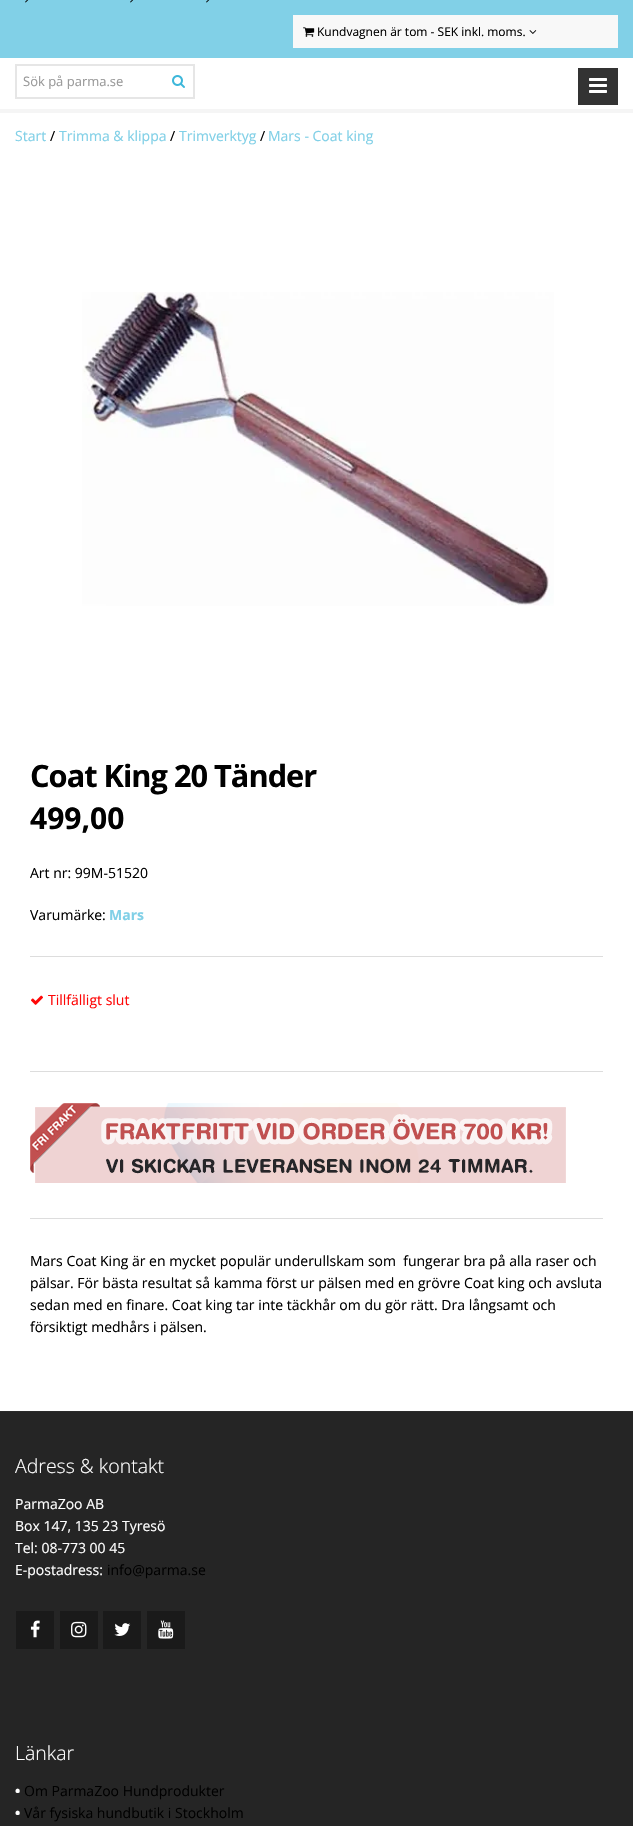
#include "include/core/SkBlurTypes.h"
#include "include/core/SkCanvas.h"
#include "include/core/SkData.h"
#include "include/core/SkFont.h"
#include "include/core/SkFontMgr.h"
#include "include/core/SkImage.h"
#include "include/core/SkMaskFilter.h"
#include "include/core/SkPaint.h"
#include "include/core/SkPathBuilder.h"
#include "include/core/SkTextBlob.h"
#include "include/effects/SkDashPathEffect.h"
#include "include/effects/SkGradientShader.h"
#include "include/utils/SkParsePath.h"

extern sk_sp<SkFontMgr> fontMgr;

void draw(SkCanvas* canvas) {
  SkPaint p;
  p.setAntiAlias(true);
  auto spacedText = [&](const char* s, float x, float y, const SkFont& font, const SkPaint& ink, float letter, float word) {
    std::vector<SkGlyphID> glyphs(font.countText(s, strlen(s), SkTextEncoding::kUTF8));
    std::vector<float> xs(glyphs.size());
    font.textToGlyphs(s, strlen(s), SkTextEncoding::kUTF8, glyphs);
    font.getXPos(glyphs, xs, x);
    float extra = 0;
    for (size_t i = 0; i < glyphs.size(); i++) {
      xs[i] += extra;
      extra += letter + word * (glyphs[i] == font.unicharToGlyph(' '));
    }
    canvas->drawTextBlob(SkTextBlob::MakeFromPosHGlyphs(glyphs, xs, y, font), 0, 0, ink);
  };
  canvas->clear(SK_ColorWHITE);
  p.setColor(SkColorSetRGB(129, 208, 231));
  canvas->drawRect(SkRect::MakeLTRB(0, 0, 633, 58), p);
  canvas->drawImageRect(SkImages::DeferredFromEncodedData(SkData::MakeFromFileName("images/1.png")), SkRect::MakeLTRB(25, 0, 29, 3), SkSamplingOptions());
  canvas->drawImageRect(SkImages::DeferredFromEncodedData(SkData::MakeFromFileName("images/1.png")), SkRect::MakeLTRB(130, 0, 134, 3), SkSamplingOptions());
  canvas->drawImageRect(SkImages::DeferredFromEncodedData(SkData::MakeFromFileName("images/1.png")), SkRect::MakeLTRB(206, 0, 210, 3), SkSamplingOptions());
  p.setColor(SkColorSetRGB(248, 248, 248));
  canvas->drawRect(SkRect::MakeLTRB(293, 15, 618, 48), p);
  canvas->drawImageRect(SkImages::DeferredFromEncodedData(SkData::MakeFromFileName("images/2.png")), SkRect::MakeLTRB(303, 27, 315, 37), SkSamplingOptions());
  canvas->drawImageRect(SkImages::DeferredFromEncodedData(SkData::MakeFromFileName("images/3.png")), SkRect::MakeLTRB(529, 30, 537, 34), SkSamplingOptions());
  p.setColor(SkColorSetRGB(245, 245, 245));
  canvas->drawRect(SkRect::MakeLTRB(0, 109, 633, 113), p);
  p.setStyle(SkPaint::kStroke_Style);
  p.setStrokeWidth(2);
  p.setColor(SkColorSetRGB(230, 230, 230));
  canvas->drawRect(SkRect::MakeLTRB(16, 65, 194, 98), p);
  canvas->drawImageRect(SkImages::DeferredFromEncodedData(SkData::MakeFromFileName("images/4.png")), SkRect::MakeLTRB(172, 75, 185, 88), SkSamplingOptions());
  p.setStyle(SkPaint::kFill_Style);
  p.setColor(SkColorSetRGB(51, 51, 51));
  canvas->drawRect(SkRect::MakeLTRB(578, 68, 618, 105), p);
  canvas->drawImageRect(SkImages::DeferredFromEncodedData(SkData::MakeFromFileName("images/5.png")), SkRect::MakeLTRB(589, 78, 607, 93), SkSamplingOptions());
  canvas->drawImageRect(SkImages::DeferredFromEncodedData(SkData::MakeFromFileName("images/6.png")), SkRect::MakeLTRB(82, 292, 554, 606), SkSamplingOptions());
  p.setColor(SkColorSetRGB(221, 221, 221));
  canvas->drawRect(SkRect::MakeLTRB(30, 956, 603, 957), p);
  canvas->drawImageRect(SkImages::DeferredFromEncodedData(SkData::MakeFromFileName("images/7.png")), SkRect::MakeLTRB(31, 995, 43, 1005), SkSamplingOptions());
  canvas->drawRect(SkRect::MakeLTRB(30, 1071, 603, 1072), p);
  canvas->drawImageRect(SkImages::DeferredFromEncodedData(SkData::MakeFromFileName("images/8.png")), SkRect::MakeLTRB(30, 1103, 566, 1183), SkSamplingOptions());
  canvas->drawRect(SkRect::MakeLTRB(30, 1218, 603, 1219), p);
  p.setColor(SkColorSetRGB(43, 43, 43));
  canvas->drawRect(SkRect::MakeLTRB(0, 1411, 633, 1412), p);
  p.setColor(SkColorSetRGB(37, 37, 37));
  canvas->drawRect(SkRect::MakeLTRB(0, 1412, 633, 1826), p);
  p.setColor(SkColorSetRGB(26, 26, 26));
  canvas->drawRect(SkRect::MakeLTRB(16, 1611, 54, 1649), p);
  canvas->drawImageRect(SkImages::DeferredFromEncodedData(SkData::MakeFromFileName("images/9.png")), SkRect::MakeLTRB(30, 1620, 40, 1638), SkSamplingOptions());
  canvas->drawRect(SkRect::MakeLTRB(60, 1611, 98, 1649), p);
  canvas->drawImageRect(SkImages::DeferredFromEncodedData(SkData::MakeFromFileName("images/10.png")), SkRect::MakeLTRB(71, 1621, 87, 1638), SkSamplingOptions());
  canvas->drawRect(SkRect::MakeLTRB(103, 1611, 141, 1649), p);
  canvas->drawImageRect(SkImages::DeferredFromEncodedData(SkData::MakeFromFileName("images/11.png")), SkRect::MakeLTRB(114, 1623, 131, 1636), SkSamplingOptions());
  canvas->drawRect(SkRect::MakeLTRB(147, 1611, 185, 1649), p);
  canvas->drawImageRect(SkImages::DeferredFromEncodedData(SkData::MakeFromFileName("images/12.png")), SkRect::MakeLTRB(158, 1620, 174, 1639), SkSamplingOptions());
  SkFont font1(fontMgr->matchFamilyStyle("Open Sans", SkFontStyle::Normal()), 12);
  font1.setSubpixel(true);
  p.setColor(SK_ColorBLACK);
  canvas->drawString("Kundvagnen är tom - SEK inkl. moms.", 317, 36, font1, p);
  SkFont font2(fontMgr->matchFamilyStyle("Open Sans", SkFontStyle::Normal()), 13);
  font2.setSubpixel(true);
  p.setColor(SkColorSetRGB(153, 153, 153));
  canvas->drawString("Sök på parma.se", 23, 86, font2, p);
  SkFont font3(fontMgr->matchFamilyStyle("Open Sans", SkFontStyle::Normal()), 14);
  font3.setSubpixel(true);
  p.setColor(SkColorSetRGB(129, 208, 231));
  canvas->drawString("Start", 15, 141, font3, p);
  p.setColor(SK_ColorBLACK);
  canvas->drawString("/", 50, 141, font3, p);
  p.setColor(SkColorSetRGB(129, 208, 231));
  canvas->drawString("Trimma & klippa", 59, 141, font3, p);
  p.setColor(SK_ColorBLACK);
  canvas->drawString("/", 170, 141, font3, p);
  p.setColor(SkColorSetRGB(129, 208, 231));
  canvas->drawString("Trimverktyg", 179, 141, font3, p);
  p.setColor(SK_ColorBLACK);
  canvas->drawString("/", 260, 141, font3, p);
  p.setColor(SkColorSetRGB(129, 208, 231));
  canvas->drawString("Mars - Coat king", 268, 141, font3, p);
  SkFont font4(fontMgr->matchFamilyStyle("Open Sans", SkFontStyle::Bold()), 30.75f);
  font4.setSubpixel(true);
  p.setColor(SK_ColorBLACK);
  spacedText("Coat King 20 Tänder", 30, 787, font4, p, -1, 0);
  SkFont font5(fontMgr->matchFamilyStyle("Open Sans", SkFontStyle::Bold()), 30);
  font5.setSubpixel(true);
  canvas->drawString("499,00", 30, 829, font5, p);
  canvas->drawString("Art nr: 99M-51520", 30, 878, font3, p);
  canvas->drawString("Varumärke:", 30, 920, font3, p);
  SkFont font6(fontMgr->matchFamilyStyle("Open Sans", SkFontStyle::Bold()), 14);
  font6.setSubpixel(true);
  p.setColor(SkColorSetRGB(129, 208, 231));
  canvas->drawString("Mars", 109, 920, font6, p);
  p.setColor(SkColorSetRGB(254, 7, 7));
  canvas->drawString("Tillfälligt slut", 48, 1005, font3, p);
  p.setColor(SK_ColorBLACK);
  canvas->drawString("Mars Coat King är en mycket populär underullskam som  fungerar bra på alla raser och", 30, 1266, font3, p);
  canvas->drawString("pälsar. För bästa resultat så kamma först ur pälsen med en grövre Coat king och avsluta", 30, 1288, font3, p);
  canvas->drawString("sedan med en finare. Coat king tar inte täckhår om du gör rätt. Dra långsamt och", 30, 1310, font3, p);
  canvas->drawString("försiktigt medhårs i pälsen.", 30, 1332, font3, p);
  SkFont font7(fontMgr->matchFamilyStyle("Open Sans", SkFontStyle(300, SkFontStyle::kNormal_Width, SkFontStyle::kUpright_Slant)), 19.5f);
  font7.setSubpixel(true);
  p.setColor(SK_ColorWHITE);
  canvas->drawString("Adress & kontakt", 15, 1473, font7, p);
  canvas->drawString("ParmaZoo AB", 15, 1509, font3, p);
  canvas->drawString("Box 147, 135 23 Tyresö", 15, 1531, font3, p);
  canvas->drawString("Tel: 08-773 00 45", 15, 1553, font3, p);
  canvas->drawString("E-postadress:", 15, 1575, font3, p);
  p.setColor(SK_ColorBLACK);
  canvas->drawString("info@parma.se", 107, 1575, font3, p);
  p.setColor(SK_ColorWHITE);
  canvas->drawString("Länkar", 15, 1760, font7, p);
  canvas->drawString("•", 15, 1796, font6, p);
  p.setColor(SK_ColorBLACK);
  canvas->drawString("Om ParmaZoo Hundprodukter", 24, 1796, font3, p);
  p.setColor(SK_ColorWHITE);
  canvas->drawString("•", 15, 1818, font6, p);
  p.setColor(SK_ColorBLACK);
  canvas->drawString("Vår fysiska hundbutik i Stockholm", 24, 1818, font3, p);
}
